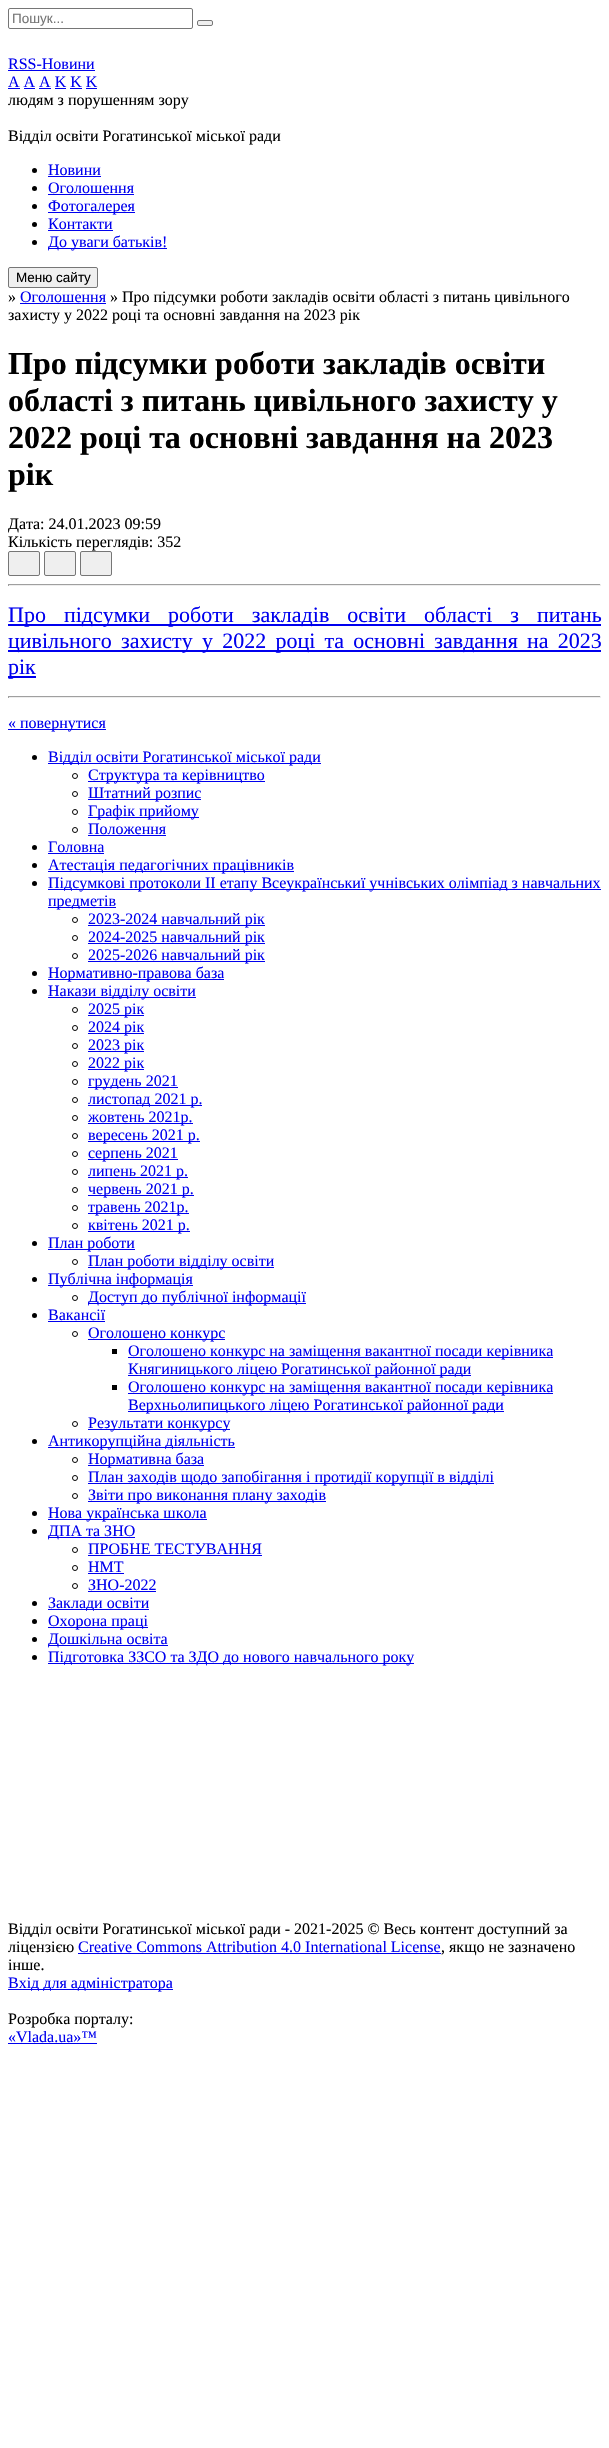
#include "include/core/SkBlurTypes.h"
#include "include/core/SkCanvas.h"
#include "include/core/SkData.h"
#include "include/core/SkFont.h"
#include "include/core/SkFontMgr.h"
#include "include/core/SkImage.h"
#include "include/core/SkMaskFilter.h"
#include "include/core/SkPaint.h"
#include "include/core/SkPathBuilder.h"
#include "include/core/SkTextBlob.h"
#include "include/effects/SkDashPathEffect.h"
#include "include/effects/SkGradientShader.h"
#include "include/utils/SkParsePath.h"

extern sk_sp<SkFontMgr> fontMgr;

void draw(SkCanvas* canvas) {
  SkPaint p;
  p.setAntiAlias(true);
  auto spacedText = [&](const char* s, float x, float y, const SkFont& font, const SkPaint& ink, float letter, float word) {
    std::vector<SkGlyphID> glyphs(font.countText(s, strlen(s), SkTextEncoding::kUTF8));
    std::vector<float> xs(glyphs.size());
    font.textToGlyphs(s, strlen(s), SkTextEncoding::kUTF8, glyphs);
    font.getXPos(glyphs, xs, x);
    float extra = 0;
    for (size_t i = 0; i < glyphs.size(); i++) {
      xs[i] += extra;
      extra += letter + word * (glyphs[i] == font.unicharToGlyph(' '));
    }
    canvas->drawTextBlob(SkTextBlob::MakeFromPosHGlyphs(glyphs, xs, y, font), 0, 0, ink);
  };
  canvas->clear(SK_ColorWHITE);
  p.setStyle(SkPaint::kStroke_Style);
  p.setStrokeWidth(1);
  p.setColor(SkColorSetRGB(118, 118, 118));
  canvas->drawRoundRect(SkRect::MakeLTRB(8.5f, 8.5f, 192.5f, 28.5f), 1.5f, 1.5f, p);
  p.setStyle(SkPaint::kFill_Style);
  p.setColor(SkColorSetRGB(239, 239, 239));
  canvas->drawRoundRect(SkRect::MakeLTRB(197.5f, 20.5f, 212.5f, 25.5f), 1.5f, 1.5f, p);
  p.setStyle(SkPaint::kStroke_Style);
  p.setColor(SkColorSetRGB(118, 118, 118));
  canvas->drawRoundRect(SkRect::MakeLTRB(197.5f, 20.5f, 212.5f, 25.5f), 1.5f, 1.5f, p);
  p.setStyle(SkPaint::kFill_Style);
  p.setColor(SkColorSetRGB(0, 0, 238));
  canvas->drawRect(SkRect::MakeLTRB(8, 70, 95, 71), p);
  canvas->drawRect(SkRect::MakeLTRB(8, 88, 20, 89), p);
  canvas->drawRect(SkRect::MakeLTRB(24, 88, 35, 89), p);
  canvas->drawRect(SkRect::MakeLTRB(39, 88, 51, 89), p);
  canvas->drawRect(SkRect::MakeLTRB(55, 88, 66, 89), p);
  canvas->drawRect(SkRect::MakeLTRB(70, 88, 82, 89), p);
  canvas->drawRect(SkRect::MakeLTRB(86, 88, 97, 89), p);
  p.setColor(SK_ColorBLACK);
  canvas->drawCircle(34.5f, 170.5f, 2.5f, p);
  p.setColor(SkColorSetRGB(0, 0, 238));
  canvas->drawRect(SkRect::MakeLTRB(48, 176, 101, 177), p);
  p.setColor(SK_ColorBLACK);
  canvas->drawCircle(34.5f, 188.5f, 2.5f, p);
  p.setColor(SkColorSetRGB(0, 0, 238));
  canvas->drawRect(SkRect::MakeLTRB(48, 194, 134, 195), p);
  p.setColor(SK_ColorBLACK);
  canvas->drawCircle(34.5f, 206.5f, 2.5f, p);
  p.setColor(SkColorSetRGB(0, 0, 238));
  canvas->drawRect(SkRect::MakeLTRB(48, 212, 135, 213), p);
  p.setColor(SK_ColorBLACK);
  canvas->drawCircle(34.5f, 224.5f, 2.5f, p);
  p.setColor(SkColorSetRGB(0, 0, 238));
  canvas->drawRect(SkRect::MakeLTRB(48, 230, 113, 231), p);
  p.setColor(SK_ColorBLACK);
  canvas->drawCircle(34.5f, 242.5f, 2.5f, p);
  p.setColor(SkColorSetRGB(0, 0, 238));
  canvas->drawRect(SkRect::MakeLTRB(48, 248, 167, 249), p);
  p.setColor(SkColorSetRGB(239, 239, 239));
  canvas->drawRoundRect(SkRect::MakeLTRB(8.5f, 267.5f, 97.5f, 287.5f), 1.5f, 1.5f, p);
  p.setStyle(SkPaint::kStroke_Style);
  p.setColor(SkColorSetRGB(118, 118, 118));
  canvas->drawRoundRect(SkRect::MakeLTRB(8.5f, 267.5f, 97.5f, 287.5f), 1.5f, 1.5f, p);
  p.setStyle(SkPaint::kFill_Style);
  p.setColor(SkColorSetRGB(0, 0, 238));
  canvas->drawRect(SkRect::MakeLTRB(20, 303, 106, 304), p);
  p.setColor(SkColorSetRGB(239, 239, 239));
  canvas->drawRoundRect(SkRect::MakeLTRB(8.5f, 551.5f, 39.5f, 575.5f), 1.5f, 1.5f, p);
  p.setStyle(SkPaint::kStroke_Style);
  p.setColor(SkColorSetRGB(118, 118, 118));
  canvas->drawRoundRect(SkRect::MakeLTRB(8.5f, 551.5f, 39.5f, 575.5f), 1.5f, 1.5f, p);
  p.setStyle(SkPaint::kFill_Style);
  p.setColor(SkColorSetRGB(239, 239, 239));
  canvas->drawRoundRect(SkRect::MakeLTRB(44.5f, 551.5f, 75.5f, 575.5f), 1.5f, 1.5f, p);
  p.setStyle(SkPaint::kStroke_Style);
  p.setColor(SkColorSetRGB(118, 118, 118));
  canvas->drawRoundRect(SkRect::MakeLTRB(44.5f, 551.5f, 75.5f, 575.5f), 1.5f, 1.5f, p);
  p.setStyle(SkPaint::kFill_Style);
  p.setColor(SkColorSetRGB(239, 239, 239));
  canvas->drawRoundRect(SkRect::MakeLTRB(80.5f, 551.5f, 111.5f, 575.5f), 1.5f, 1.5f, p);
  p.setStyle(SkPaint::kStroke_Style);
  p.setColor(SkColorSetRGB(118, 118, 118));
  canvas->drawRoundRect(SkRect::MakeLTRB(80.5f, 551.5f, 111.5f, 575.5f), 1.5f, 1.5f, p);
  p.setStyle(SkPaint::kFill_Style);
  p.setColor(SkColorSetRGB(159, 159, 159));
  canvas->drawRect(SkRect::MakeLTRB(8, 584, 601, 585), p);
  p.setColor(SkColorSetRGB(238, 238, 238));
  canvas->drawRect(SkRect::MakeLTRB(600, 584, 601, 586), p);
  canvas->drawRect(SkRect::MakeLTRB(8, 585, 601, 586), p);
  p.setColor(SkColorSetRGB(159, 159, 159));
  canvas->drawRect(SkRect::MakeLTRB(8, 584, 9, 586), p);
  p.setColor(SkColorSetRGB(0, 0, 238));
  canvas->drawRect(SkRect::MakeLTRB(8, 624, 601, 626), p);
  canvas->drawRect(SkRect::MakeLTRB(8, 650, 601, 652), p);
  canvas->drawRect(SkRect::MakeLTRB(8, 676, 36, 678), p);
  p.setColor(SkColorSetRGB(159, 159, 159));
  canvas->drawRect(SkRect::MakeLTRB(8, 696, 601, 697), p);
  p.setColor(SkColorSetRGB(238, 238, 238));
  canvas->drawRect(SkRect::MakeLTRB(600, 696, 601, 698), p);
  canvas->drawRect(SkRect::MakeLTRB(8, 697, 601, 698), p);
  p.setColor(SkColorSetRGB(159, 159, 159));
  canvas->drawRect(SkRect::MakeLTRB(8, 696, 9, 698), p);
  p.setColor(SkColorSetRGB(0, 0, 238));
  canvas->drawRect(SkRect::MakeLTRB(8, 729, 106, 730), p);
  p.setColor(SK_ColorBLACK);
  canvas->drawCircle(34.5f, 757.5f, 2.5f, p);
  p.setColor(SkColorSetRGB(0, 0, 238));
  canvas->drawRect(SkRect::MakeLTRB(48, 763, 321, 764), p);
  p.setStyle(SkPaint::kStroke_Style);
  p.setColor(SK_ColorBLACK);
  canvas->drawCircle(75, 776, 2.5f, p);
  p.setStyle(SkPaint::kFill_Style);
  p.setColor(SkColorSetRGB(0, 0, 238));
  canvas->drawRect(SkRect::MakeLTRB(88, 781, 265, 782), p);
  p.setStyle(SkPaint::kStroke_Style);
  p.setColor(SK_ColorBLACK);
  canvas->drawCircle(75, 794, 2.5f, p);
  p.setStyle(SkPaint::kFill_Style);
  p.setColor(SkColorSetRGB(0, 0, 238));
  canvas->drawRect(SkRect::MakeLTRB(88, 799, 201, 800), p);
  p.setStyle(SkPaint::kStroke_Style);
  p.setColor(SK_ColorBLACK);
  canvas->drawCircle(75, 812, 2.5f, p);
  p.setStyle(SkPaint::kFill_Style);
  p.setColor(SkColorSetRGB(0, 0, 238));
  canvas->drawRect(SkRect::MakeLTRB(88, 817, 199, 818), p);
  p.setStyle(SkPaint::kStroke_Style);
  p.setColor(SK_ColorBLACK);
  canvas->drawCircle(75, 830, 2.5f, p);
  p.setStyle(SkPaint::kFill_Style);
  p.setColor(SkColorSetRGB(0, 0, 238));
  canvas->drawRect(SkRect::MakeLTRB(88, 835, 166, 836), p);
  p.setColor(SK_ColorBLACK);
  canvas->drawCircle(34.5f, 847.5f, 2.5f, p);
  p.setColor(SkColorSetRGB(0, 0, 238));
  canvas->drawRect(SkRect::MakeLTRB(48, 853, 104, 854), p);
  p.setColor(SK_ColorBLACK);
  canvas->drawCircle(34.5f, 865.5f, 2.5f, p);
  p.setColor(SkColorSetRGB(0, 0, 238));
  canvas->drawRect(SkRect::MakeLTRB(48, 871, 294, 872), p);
  p.setColor(SK_ColorBLACK);
  canvas->drawCircle(34.5f, 883.5f, 2.5f, p);
  p.setColor(SkColorSetRGB(0, 0, 238));
  canvas->drawRect(SkRect::MakeLTRB(48, 889, 601, 890), p);
  canvas->drawRect(SkRect::MakeLTRB(48, 907, 116, 908), p);
  p.setStyle(SkPaint::kStroke_Style);
  p.setColor(SK_ColorBLACK);
  canvas->drawCircle(75, 920, 2.5f, p);
  p.setStyle(SkPaint::kFill_Style);
  p.setColor(SkColorSetRGB(0, 0, 238));
  canvas->drawRect(SkRect::MakeLTRB(88, 925, 265, 926), p);
  p.setStyle(SkPaint::kStroke_Style);
  p.setColor(SK_ColorBLACK);
  canvas->drawCircle(75, 938, 2.5f, p);
  p.setStyle(SkPaint::kFill_Style);
  p.setColor(SkColorSetRGB(0, 0, 238));
  canvas->drawRect(SkRect::MakeLTRB(88, 943, 265, 944), p);
  p.setStyle(SkPaint::kStroke_Style);
  p.setColor(SK_ColorBLACK);
  canvas->drawCircle(75, 956, 2.5f, p);
  p.setStyle(SkPaint::kFill_Style);
  p.setColor(SkColorSetRGB(0, 0, 238));
  canvas->drawRect(SkRect::MakeLTRB(88, 961, 265, 962), p);
  p.setColor(SK_ColorBLACK);
  canvas->drawCircle(34.5f, 973.5f, 2.5f, p);
  p.setColor(SkColorSetRGB(0, 0, 238));
  canvas->drawRect(SkRect::MakeLTRB(48, 979, 224, 980), p);
  p.setColor(SK_ColorBLACK);
  canvas->drawCircle(34.5f, 991.5f, 2.5f, p);
  p.setColor(SkColorSetRGB(0, 0, 238));
  canvas->drawRect(SkRect::MakeLTRB(48, 997, 196, 998), p);
  p.setStyle(SkPaint::kStroke_Style);
  p.setColor(SK_ColorBLACK);
  canvas->drawCircle(75, 1010, 2.5f, p);
  p.setStyle(SkPaint::kFill_Style);
  p.setColor(SkColorSetRGB(0, 0, 238));
  canvas->drawRect(SkRect::MakeLTRB(88, 1015, 144, 1016), p);
  p.setStyle(SkPaint::kStroke_Style);
  p.setColor(SK_ColorBLACK);
  canvas->drawCircle(75, 1028, 2.5f, p);
  p.setStyle(SkPaint::kFill_Style);
  p.setColor(SkColorSetRGB(0, 0, 238));
  canvas->drawRect(SkRect::MakeLTRB(88, 1033, 144, 1034), p);
  p.setStyle(SkPaint::kStroke_Style);
  p.setColor(SK_ColorBLACK);
  canvas->drawCircle(75, 1046, 2.5f, p);
  p.setStyle(SkPaint::kFill_Style);
  p.setColor(SkColorSetRGB(0, 0, 238));
  canvas->drawRect(SkRect::MakeLTRB(88, 1051, 144, 1052), p);
  p.setStyle(SkPaint::kStroke_Style);
  p.setColor(SK_ColorBLACK);
  canvas->drawCircle(75, 1064, 2.5f, p);
  p.setStyle(SkPaint::kFill_Style);
  p.setColor(SkColorSetRGB(0, 0, 238));
  canvas->drawRect(SkRect::MakeLTRB(88, 1069, 144, 1070), p);
  p.setStyle(SkPaint::kStroke_Style);
  p.setColor(SK_ColorBLACK);
  canvas->drawCircle(75, 1082, 2.5f, p);
  p.setStyle(SkPaint::kFill_Style);
  p.setColor(SkColorSetRGB(0, 0, 238));
  canvas->drawRect(SkRect::MakeLTRB(88, 1087, 178, 1088), p);
  p.setStyle(SkPaint::kStroke_Style);
  p.setColor(SK_ColorBLACK);
  canvas->drawCircle(75, 1100, 2.5f, p);
  p.setStyle(SkPaint::kFill_Style);
  p.setColor(SkColorSetRGB(0, 0, 238));
  canvas->drawRect(SkRect::MakeLTRB(88, 1105, 202, 1106), p);
  p.setStyle(SkPaint::kStroke_Style);
  p.setColor(SK_ColorBLACK);
  canvas->drawCircle(75, 1118, 2.5f, p);
  p.setStyle(SkPaint::kFill_Style);
  p.setColor(SkColorSetRGB(0, 0, 238));
  canvas->drawRect(SkRect::MakeLTRB(88, 1123, 193, 1124), p);
  p.setStyle(SkPaint::kStroke_Style);
  p.setColor(SK_ColorBLACK);
  canvas->drawCircle(75, 1136, 2.5f, p);
  p.setStyle(SkPaint::kFill_Style);
  p.setColor(SkColorSetRGB(0, 0, 238));
  canvas->drawRect(SkRect::MakeLTRB(88, 1141, 200, 1142), p);
  p.setStyle(SkPaint::kStroke_Style);
  p.setColor(SK_ColorBLACK);
  canvas->drawCircle(75, 1154, 2.5f, p);
  p.setStyle(SkPaint::kFill_Style);
  p.setColor(SkColorSetRGB(0, 0, 238));
  canvas->drawRect(SkRect::MakeLTRB(88, 1159, 178, 1160), p);
  p.setStyle(SkPaint::kStroke_Style);
  p.setColor(SK_ColorBLACK);
  canvas->drawCircle(75, 1172, 2.5f, p);
  p.setStyle(SkPaint::kFill_Style);
  p.setColor(SkColorSetRGB(0, 0, 238));
  canvas->drawRect(SkRect::MakeLTRB(88, 1177, 188, 1178), p);
  p.setStyle(SkPaint::kStroke_Style);
  p.setColor(SK_ColorBLACK);
  canvas->drawCircle(75, 1190, 2.5f, p);
  p.setStyle(SkPaint::kFill_Style);
  p.setColor(SkColorSetRGB(0, 0, 238));
  canvas->drawRect(SkRect::MakeLTRB(88, 1195, 194, 1196), p);
  p.setStyle(SkPaint::kStroke_Style);
  p.setColor(SK_ColorBLACK);
  canvas->drawCircle(75, 1208, 2.5f, p);
  p.setStyle(SkPaint::kFill_Style);
  p.setColor(SkColorSetRGB(0, 0, 238));
  canvas->drawRect(SkRect::MakeLTRB(88, 1213, 189, 1214), p);
  p.setStyle(SkPaint::kStroke_Style);
  p.setColor(SK_ColorBLACK);
  canvas->drawCircle(75, 1226, 2.5f, p);
  p.setStyle(SkPaint::kFill_Style);
  p.setColor(SkColorSetRGB(0, 0, 238));
  canvas->drawRect(SkRect::MakeLTRB(88, 1231, 190, 1232), p);
  p.setColor(SK_ColorBLACK);
  canvas->drawCircle(34.5f, 1243.5f, 2.5f, p);
  p.setColor(SkColorSetRGB(0, 0, 238));
  canvas->drawRect(SkRect::MakeLTRB(48, 1249, 135, 1250), p);
  p.setStyle(SkPaint::kStroke_Style);
  p.setColor(SK_ColorBLACK);
  canvas->drawCircle(75, 1262, 2.5f, p);
  p.setStyle(SkPaint::kFill_Style);
  p.setColor(SkColorSetRGB(0, 0, 238));
  canvas->drawRect(SkRect::MakeLTRB(88, 1267, 274, 1268), p);
  p.setColor(SK_ColorBLACK);
  canvas->drawCircle(34.5f, 1279.5f, 2.5f, p);
  p.setColor(SkColorSetRGB(0, 0, 238));
  canvas->drawRect(SkRect::MakeLTRB(48, 1285, 193, 1286), p);
  p.setStyle(SkPaint::kStroke_Style);
  p.setColor(SK_ColorBLACK);
  canvas->drawCircle(75, 1298, 2.5f, p);
  p.setStyle(SkPaint::kFill_Style);
  p.setColor(SkColorSetRGB(0, 0, 238));
  canvas->drawRect(SkRect::MakeLTRB(88, 1303, 306, 1304), p);
  p.setColor(SK_ColorBLACK);
  canvas->drawCircle(34.5f, 1315.5f, 2.5f, p);
  p.setColor(SkColorSetRGB(0, 0, 238));
  canvas->drawRect(SkRect::MakeLTRB(48, 1321, 105, 1322), p);
  p.setStyle(SkPaint::kStroke_Style);
  p.setColor(SK_ColorBLACK);
  canvas->drawCircle(75, 1334, 2.5f, p);
  p.setStyle(SkPaint::kFill_Style);
  p.setColor(SkColorSetRGB(0, 0, 238));
  canvas->drawRect(SkRect::MakeLTRB(88, 1339, 225, 1340), p);
  p.setColor(SK_ColorBLACK);
  canvas->drawRect(SkRect::MakeLTRB(112, 1349, 117, 1354), p);
  p.setColor(SkColorSetRGB(0, 0, 238));
  canvas->drawRect(SkRect::MakeLTRB(128, 1357, 553, 1358), p);
  canvas->drawRect(SkRect::MakeLTRB(128, 1375, 471, 1376), p);
  p.setColor(SK_ColorBLACK);
  canvas->drawRect(SkRect::MakeLTRB(112, 1385, 117, 1390), p);
  p.setColor(SkColorSetRGB(0, 0, 238));
  canvas->drawRect(SkRect::MakeLTRB(128, 1393, 553, 1394), p);
  canvas->drawRect(SkRect::MakeLTRB(128, 1411, 504, 1412), p);
  p.setStyle(SkPaint::kStroke_Style);
  p.setColor(SK_ColorBLACK);
  canvas->drawCircle(75, 1424, 2.5f, p);
  p.setStyle(SkPaint::kFill_Style);
  p.setColor(SkColorSetRGB(0, 0, 238));
  canvas->drawRect(SkRect::MakeLTRB(88, 1429, 230, 1430), p);
  p.setColor(SK_ColorBLACK);
  canvas->drawCircle(34.5f, 1441.5f, 2.5f, p);
  p.setColor(SkColorSetRGB(0, 0, 238));
  canvas->drawRect(SkRect::MakeLTRB(48, 1447, 235, 1448), p);
  p.setStyle(SkPaint::kStroke_Style);
  p.setColor(SK_ColorBLACK);
  canvas->drawCircle(75, 1460, 2.5f, p);
  p.setStyle(SkPaint::kFill_Style);
  p.setColor(SkColorSetRGB(0, 0, 238));
  canvas->drawRect(SkRect::MakeLTRB(88, 1465, 204, 1466), p);
  p.setStyle(SkPaint::kStroke_Style);
  p.setColor(SK_ColorBLACK);
  canvas->drawCircle(75, 1478, 2.5f, p);
  p.setStyle(SkPaint::kFill_Style);
  p.setColor(SkColorSetRGB(0, 0, 238));
  canvas->drawRect(SkRect::MakeLTRB(88, 1483, 494, 1484), p);
  p.setStyle(SkPaint::kStroke_Style);
  p.setColor(SK_ColorBLACK);
  canvas->drawCircle(75, 1496, 2.5f, p);
  p.setStyle(SkPaint::kFill_Style);
  p.setColor(SkColorSetRGB(0, 0, 238));
  canvas->drawRect(SkRect::MakeLTRB(88, 1501, 326, 1502), p);
  p.setColor(SK_ColorBLACK);
  canvas->drawCircle(34.5f, 1513.5f, 2.5f, p);
  p.setColor(SkColorSetRGB(0, 0, 238));
  canvas->drawRect(SkRect::MakeLTRB(48, 1519, 207, 1520), p);
  p.setColor(SK_ColorBLACK);
  canvas->drawCircle(34.5f, 1531.5f, 2.5f, p);
  p.setColor(SkColorSetRGB(0, 0, 238));
  canvas->drawRect(SkRect::MakeLTRB(48, 1537, 135, 1538), p);
  p.setStyle(SkPaint::kStroke_Style);
  p.setColor(SK_ColorBLACK);
  canvas->drawCircle(75, 1550, 2.5f, p);
  p.setStyle(SkPaint::kFill_Style);
  p.setColor(SkColorSetRGB(0, 0, 238));
  canvas->drawRect(SkRect::MakeLTRB(88, 1555, 262, 1556), p);
  p.setStyle(SkPaint::kStroke_Style);
  p.setColor(SK_ColorBLACK);
  canvas->drawCircle(75, 1568, 2.5f, p);
  p.setStyle(SkPaint::kFill_Style);
  p.setColor(SkColorSetRGB(0, 0, 238));
  canvas->drawRect(SkRect::MakeLTRB(88, 1573, 124, 1574), p);
  p.setStyle(SkPaint::kStroke_Style);
  p.setColor(SK_ColorBLACK);
  canvas->drawCircle(75, 1586, 2.5f, p);
  p.setStyle(SkPaint::kFill_Style);
  p.setColor(SkColorSetRGB(0, 0, 238));
  canvas->drawRect(SkRect::MakeLTRB(88, 1591, 156, 1592), p);
  p.setColor(SK_ColorBLACK);
  canvas->drawCircle(34.5f, 1603.5f, 2.5f, p);
  p.setColor(SkColorSetRGB(0, 0, 238));
  canvas->drawRect(SkRect::MakeLTRB(48, 1609, 149, 1610), p);
  p.setColor(SK_ColorBLACK);
  canvas->drawCircle(34.5f, 1621.5f, 2.5f, p);
  p.setColor(SkColorSetRGB(0, 0, 238));
  canvas->drawRect(SkRect::MakeLTRB(48, 1627, 148, 1628), p);
  p.setColor(SK_ColorBLACK);
  canvas->drawCircle(34.5f, 1639.5f, 2.5f, p);
  p.setColor(SkColorSetRGB(0, 0, 238));
  canvas->drawRect(SkRect::MakeLTRB(48, 1645, 168, 1646), p);
  p.setColor(SK_ColorBLACK);
  canvas->drawCircle(34.5f, 1657.5f, 2.5f, p);
  p.setColor(SkColorSetRGB(0, 0, 238));
  canvas->drawRect(SkRect::MakeLTRB(48, 1663, 414, 1664), p);
  canvas->drawRect(SkRect::MakeLTRB(78, 1953, 441, 1954), p);
  canvas->drawRect(SkRect::MakeLTRB(8, 1989, 173, 1990), p);
  canvas->drawRect(SkRect::MakeLTRB(8, 2043, 97, 2044), p);
  SkFont font1(fontMgr->matchFamilyStyle("Liberation Sans", SkFontStyle::Normal()), 13.5f);
  font1.setSubpixel(true);
  p.setColor(SkColorSetRGB(117, 117, 117));
  canvas->drawString("Пошук...", 12, 23, font1, p);
  SkFont font2(fontMgr->matchFamilyStyle("Liberation Serif", SkFontStyle::Normal()), 16);
  font2.setSubpixel(true);
  p.setColor(SkColorSetRGB(0, 0, 238));
  canvas->drawString("RSS-Новини", 8, 69, font2, p);
  canvas->drawString("A A A K K K", 8, 87, font2, p);
  p.setColor(SK_ColorBLACK);
  canvas->drawString("людям з порушенням зору", 8, 105, font2, p);
  canvas->drawString("Відділ освіти Рогатинської міської ради", 8, 141, font2, p);
  p.setColor(SkColorSetRGB(0, 0, 238));
  canvas->drawString("Новини", 48, 175, font2, p);
  canvas->drawString("Оголошення", 48, 193, font2, p);
  canvas->drawString("Фотогалерея", 48, 211, font2, p);
  canvas->drawString("Контакти", 48, 229, font2, p);
  canvas->drawString("До уваги батьків!", 48, 247, font2, p);
  p.setColor(SK_ColorBLACK);
  canvas->drawString("Меню сайту", 16, 282, font1, p);
  canvas->drawString("»", 8, 302, font2, p);
  p.setColor(SkColorSetRGB(0, 0, 238));
  canvas->drawString("Оголошення", 20, 302, font2, p);
  p.setColor(SK_ColorBLACK);
  canvas->drawString("» Про підсумки роботи закладів освіти області з питань цивільного", 110, 302, font2, p);
  canvas->drawString("захисту у 2022 році та основні завдання на 2023 рік", 8, 320, font2, p);
  SkFont font3(fontMgr->matchFamilyStyle("Liberation Serif", SkFontStyle::Bold()), 32);
  font3.setSubpixel(true);
  canvas->drawString("Про підсумки роботи закладів освіти", 8, 374, font3, p);
  canvas->drawString("області з питань цивільного захисту у", 8, 411, font3, p);
  canvas->drawString("2022 році та основні завдання на 2023", 8, 448, font3, p);
  canvas->drawString("рік", 8, 485, font3, p);
  canvas->drawString("Дата: 24.01.2023 09:59", 8, 529, font2, p);
  canvas->drawString("Кількість переглядів: 352", 8, 547, font2, p);
  SkFont font4(fontMgr->matchFamilyStyle("Liberation Serif", SkFontStyle::Normal()), 22);
  font4.setSubpixel(true);
  p.setColor(SkColorSetRGB(0, 0, 238));
  spacedText("Про підсумки роботи закладів освіти області з питань", 8, 622, font4, p, 0, 12.5f);
  spacedText("цивільного захисту у 2022 році та основні завдання на 2023", 8, 648, font4, p, 0, 3.75f);
  canvas->drawString("рік", 8, 674, font4, p);
  canvas->drawString("« повернутися", 8, 728, font2, p);
  canvas->drawString("Відділ освіти Рогатинської міської ради", 48, 762, font2, p);
  canvas->drawString("Структура та керівництво", 88, 780, font2, p);
  canvas->drawString("Штатний розпис", 88, 798, font2, p);
  canvas->drawString("Графік прийому", 88, 816, font2, p);
  canvas->drawString("Положення", 88, 834, font2, p);
  canvas->drawString("Головна", 48, 852, font2, p);
  canvas->drawString("Атестація педагогічних працівників", 48, 870, font2, p);
  canvas->drawString("Підсумкові протоколи ІІ етапу Всеукраїнськиї учнівських олімпіад з навчальних", 48, 888, font2, p);
  canvas->drawString("предметів", 48, 906, font2, p);
  canvas->drawString("2023-2024 навчальний рік", 88, 924, font2, p);
  canvas->drawString("2024-2025 навчальний рік", 88, 942, font2, p);
  canvas->drawString("2025-2026 навчальний рік", 88, 960, font2, p);
  canvas->drawString("Нормативно-правова база", 48, 978, font2, p);
  canvas->drawString("Накази відділу освіти", 48, 996, font2, p);
  canvas->drawString("2025 рік", 88, 1014, font2, p);
  canvas->drawString("2024 рік", 88, 1032, font2, p);
  canvas->drawString("2023 рік", 88, 1050, font2, p);
  canvas->drawString("2022 рік", 88, 1068, font2, p);
  canvas->drawString("грудень 2021", 88, 1086, font2, p);
  canvas->drawString("листопад 2021 р.", 88, 1104, font2, p);
  canvas->drawString("жовтень 2021р.", 88, 1122, font2, p);
  canvas->drawString("вересень 2021 р.", 88, 1140, font2, p);
  canvas->drawString("серпень 2021", 88, 1158, font2, p);
  canvas->drawString("липень 2021 р.", 88, 1176, font2, p);
  canvas->drawString("червень 2021 р.", 88, 1194, font2, p);
  canvas->drawString("травень 2021р.", 88, 1212, font2, p);
  canvas->drawString("квітень 2021 р.", 88, 1230, font2, p);
  canvas->drawString("План роботи", 48, 1248, font2, p);
  canvas->drawString("План роботи відділу освіти", 88, 1266, font2, p);
  canvas->drawString("Публічна інформація", 48, 1284, font2, p);
  canvas->drawString("Доступ до публічної інформації", 88, 1302, font2, p);
  canvas->drawString("Вакансії", 48, 1320, font2, p);
  canvas->drawString("Оголошено конкурс", 88, 1338, font2, p);
  canvas->drawString("Оголошено конкурс на заміщення вакантної посади керівника", 128, 1356, font2, p);
  canvas->drawString("Княгиницького ліцею Рогатинської районної ради", 128, 1374, font2, p);
  canvas->drawString("Оголошено конкурс на заміщення вакантної посади керівника", 128, 1392, font2, p);
  canvas->drawString("Верхньолипицького ліцею Рогатинської районної ради", 128, 1410, font2, p);
  canvas->drawString("Результати конкурсу", 88, 1428, font2, p);
  canvas->drawString("Антикорупційна діяльність", 48, 1446, font2, p);
  canvas->drawString("Нормативна база", 88, 1464, font2, p);
  canvas->drawString("План заходів щодо запобігання і протидії корупції в відділі", 88, 1482, font2, p);
  canvas->drawString("Звіти про виконання плану заходів", 88, 1500, font2, p);
  canvas->drawString("Нова українська школа", 48, 1518, font2, p);
  canvas->drawString("ДПА та ЗНО", 48, 1536, font2, p);
  canvas->drawString("ПРОБНЕ ТЕСТУВАННЯ", 88, 1554, font2, p);
  canvas->drawString("НМТ", 88, 1572, font2, p);
  canvas->drawString("ЗНО-2022", 88, 1590, font2, p);
  canvas->drawString("Заклади освіти", 48, 1608, font2, p);
  canvas->drawString("Охорона праці", 48, 1626, font2, p);
  canvas->drawString("Дошкільна освіта", 48, 1644, font2, p);
  canvas->drawString("Підготовка ЗЗСО та ЗДО до нового навчального року", 48, 1662, font2, p);
  p.setColor(SK_ColorBLACK);
  canvas->drawString("Відділ освіти Рогатинської міської ради - 2021-2025 © Весь контент доступний за", 8, 1934, font2, p);
  canvas->drawString("ліцензією", 8, 1952, font2, p);
  p.setColor(SkColorSetRGB(0, 0, 238));
  canvas->drawString("Creative Commons Attribution 4.0 International License", 78, 1952, font2, p);
  p.setColor(SK_ColorBLACK);
  canvas->drawString(", якщо не зазначено", 441, 1952, font2, p);
  canvas->drawString("інше.", 8, 1970, font2, p);
  p.setColor(SkColorSetRGB(0, 0, 238));
  canvas->drawString("Вхід для адміністратора", 8, 1988, font2, p);
  p.setColor(SK_ColorBLACK);
  canvas->drawString("Розробка порталу:", 8, 2024, font2, p);
  p.setColor(SkColorSetRGB(0, 0, 238));
  canvas->drawString("«Vlada.ua»™", 8, 2042, font2, p);
}
